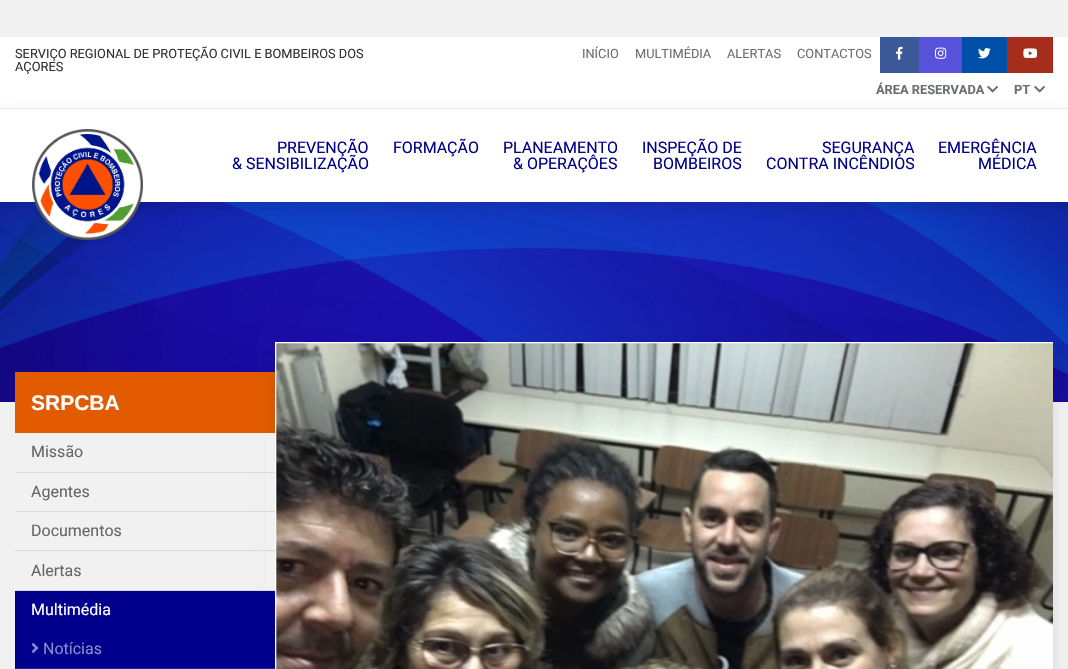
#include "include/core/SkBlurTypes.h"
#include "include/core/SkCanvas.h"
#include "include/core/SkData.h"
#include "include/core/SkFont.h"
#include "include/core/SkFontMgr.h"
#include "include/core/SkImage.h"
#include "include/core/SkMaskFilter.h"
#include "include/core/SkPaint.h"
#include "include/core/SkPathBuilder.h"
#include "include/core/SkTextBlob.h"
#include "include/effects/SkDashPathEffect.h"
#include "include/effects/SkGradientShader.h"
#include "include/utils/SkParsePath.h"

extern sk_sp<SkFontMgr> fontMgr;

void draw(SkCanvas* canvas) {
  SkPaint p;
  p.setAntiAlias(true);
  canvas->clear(SkColorSetRGB(241, 241, 241));
  p.setColor(SK_ColorWHITE);
  canvas->drawRect(SkRect::MakeLTRB(0, 37, 1068, 108), p);
  p.setColor(SkColorSetRGB(237, 239, 242));
  canvas->drawRect(SkRect::MakeLTRB(0, 108, 1068, 109), p);
  p.setColor(SkColorSetRGB(59, 89, 152));
  canvas->drawRect(SkRect::MakeLTRB(880, 37, 919, 73), p);
  canvas->drawImageRect(SkImages::DeferredFromEncodedData(SkData::MakeFromFileName("images/1.png")), SkRect::MakeLTRB(896, 46, 903, 60), SkSamplingOptions());
  p.setColor(SkColorSetRGB(88, 81, 219));
  canvas->drawRect(SkRect::MakeLTRB(919, 37, 962, 73), p);
  canvas->drawImageRect(SkImages::DeferredFromEncodedData(SkData::MakeFromFileName("images/2.png")), SkRect::MakeLTRB(935, 47, 947, 59), SkSamplingOptions());
  p.setColor(SkColorSetRGB(0, 79, 168));
  canvas->drawRect(SkRect::MakeLTRB(962, 37, 1007, 73), p);
  canvas->drawImageRect(SkImages::DeferredFromEncodedData(SkData::MakeFromFileName("images/3.png")), SkRect::MakeLTRB(978, 48, 991, 59), SkSamplingOptions());
  p.setColor(SkColorSetRGB(166, 44, 28));
  canvas->drawRect(SkRect::MakeLTRB(1007, 37, 1053, 73), p);
  canvas->drawImageRect(SkImages::DeferredFromEncodedData(SkData::MakeFromFileName("images/4.png")), SkRect::MakeLTRB(1023, 48, 1037, 58), SkSamplingOptions());
  canvas->drawImageRect(SkImages::DeferredFromEncodedData(SkData::MakeFromFileName("images/5.png")), SkRect::MakeLTRB(987, 85, 998, 93), SkSamplingOptions());
  canvas->drawImageRect(SkImages::DeferredFromEncodedData(SkData::MakeFromFileName("images/5.png")), SkRect::MakeLTRB(1034, 85, 1045, 93), SkSamplingOptions());
  canvas->drawImageRect(SkImages::DeferredFromEncodedData(SkData::MakeFromFileName("images/7.png")), SkRect::MakeLTRB(0, 202, 1068, 402), SkSamplingOptions());
  p.setColor(SkColorSetARGB(26, 0, 0, 0));
  p.setMaskFilter(SkMaskFilter::MakeBlur(kNormal_SkBlurStyle, 7));
  canvas->drawRect(SkRect::MakeLTRB(0, 115, 1068, 208), p);
  p.setMaskFilter(nullptr);
  p.setColor(SK_ColorWHITE);
  canvas->drawRect(SkRect::MakeLTRB(0, 109, 1068, 202), p);
  canvas->drawImageRect(SkImages::DeferredFromEncodedData(SkData::MakeFromFileName("images/6.png")), SkRect::MakeLTRB(32, 129, 143, 240), SkSamplingOptions());
  p.setColor(SkColorSetRGB(226, 91, 1));
  canvas->drawRect(SkRect::MakeLTRB(15, 372, 275, 433), p);
  p.setColor(SkColorSetARGB(26, 0, 0, 0));
  p.setMaskFilter(SkMaskFilter::MakeBlur(kNormal_SkBlurStyle, 7));
  canvas->drawRect(SkRect::MakeLTRB(275, 348, 1053, 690), p);
  p.setMaskFilter(nullptr);
  p.setColor(SkColorSetRGB(241, 241, 241));
  canvas->drawRect(SkRect::MakeLTRB(266, 433, 275, 472), p);
  p.setColor(SkColorSetRGB(217, 217, 217));
  canvas->drawRect(SkRect::MakeLTRB(15, 472, 275, 473), p);
  p.setColor(SkColorSetRGB(241, 241, 241));
  canvas->drawRect(SkRect::MakeLTRB(266, 473, 275, 511), p);
  p.setColor(SkColorSetRGB(217, 217, 217));
  canvas->drawRect(SkRect::MakeLTRB(15, 511, 275, 512), p);
  p.setColor(SkColorSetRGB(241, 241, 241));
  canvas->drawRect(SkRect::MakeLTRB(266, 512, 275, 550), p);
  p.setColor(SkColorSetRGB(217, 217, 217));
  canvas->drawRect(SkRect::MakeLTRB(15, 550, 275, 551), p);
  p.setColor(SkColorSetRGB(241, 241, 241));
  canvas->drawRect(SkRect::MakeLTRB(266, 551, 275, 590), p);
  p.setColor(SkColorSetRGB(217, 217, 217));
  canvas->drawRect(SkRect::MakeLTRB(15, 590, 275, 591), p);
  p.setColor(SkColorSetRGB(0, 0, 140));
  canvas->drawRect(SkRect::MakeLTRB(15, 591, 275, 668), p);
  p.setColor(SkColorSetRGB(29, 39, 149));
  canvas->drawRect(SkRect::MakeLTRB(15, 668, 275, 669), p);
  canvas->drawImageRect(SkImages::DeferredFromEncodedData(SkData::MakeFromFileName("images/8.png")), SkRect::MakeLTRB(31, 643, 39, 653), SkSamplingOptions());
  canvas->drawImageRect(SkImages::DeferredFromEncodedData(SkData::MakeFromFileName("images/9.png")), SkRect::MakeLTRB(275, 342, 1053, 669), SkSamplingOptions());
  SkFont font1(fontMgr->matchFamilyStyle("Roboto", SkFontStyle::Normal()), 12.8f);
  font1.setSubpixel(true);
  p.setColor(SkColorSetRGB(51, 51, 51));
  canvas->drawString("SERVIÇO REGIONAL DE PROTEÇÃO CIVIL E BOMBEIROS DOS", 15, 58, font1, p);
  canvas->drawString("AÇORES", 15, 71, font1, p);
  p.setColor(SkColorSetRGB(106, 111, 115));
  canvas->drawString("INÍCIO", 582, 58, font1, p);
  canvas->drawString("MULTIMÉDIA", 635, 58, font1, p);
  canvas->drawString("ALERTAS", 727, 58, font1, p);
  canvas->drawString("CONTACTOS", 797, 58, font1, p);
  SkFont font2(fontMgr->matchFamilyStyle("Roboto", SkFontStyle::Bold()), 12.8f);
  font2.setSubpixel(true);
  canvas->drawString("ÁREA RESERVADA", 876, 94, font2, p);
  canvas->drawString("PT", 1014, 94, font2, p);
  SkFont font3(fontMgr->matchFamilyStyle("Roboto", SkFontStyle::Normal()), 16);
  font3.setSubpixel(true);
  p.setColor(SkColorSetRGB(0, 0, 140));
  canvas->drawString("PREVENÇÃO", 277, 153, font3, p);
  canvas->drawString("& SENSIBILIZAÇÃO", 232, 169, font3, p);
  canvas->drawString("FORMAÇÃO", 393, 153, font3, p);
  canvas->drawString("PLANEAMENTO", 503, 153, font3, p);
  canvas->drawString("& OPERAÇÔES", 513, 169, font3, p);
  canvas->drawString("INSPEÇÃO DE", 642, 153, font3, p);
  canvas->drawString("BOMBEIROS", 653, 169, font3, p);
  canvas->drawString("SEGURANÇA", 822, 153, font3, p);
  canvas->drawString("CONTRA INCÊNDIOS", 766, 169, font3, p);
  canvas->drawString("EMERGÊNCIA", 938, 153, font3, p);
  canvas->drawString("MÉDICA", 978, 169, font3, p);
  SkFont font4(fontMgr->matchFamilyStyle("Liberation Sans", SkFontStyle::Bold()), 21);
  font4.setSubpixel(true);
  p.setColor(SK_ColorWHITE);
  canvas->drawString("SRPCBA", 31, 410, font4, p);
  p.setColor(SkColorSetRGB(102, 102, 102));
  canvas->drawString("Missão", 31, 457, font3, p);
  canvas->drawString("Agentes", 31, 497, font3, p);
  canvas->drawString("Documentos", 31, 536, font3, p);
  canvas->drawString("Alertas", 31, 576, font3, p);
  p.setColor(SK_ColorWHITE);
  canvas->drawString("Multimédia", 31, 615, font3, p);
  p.setColor(SkColorSetRGB(140, 140, 203));
  canvas->drawString("Notícias", 43, 654, font3, p);
}
